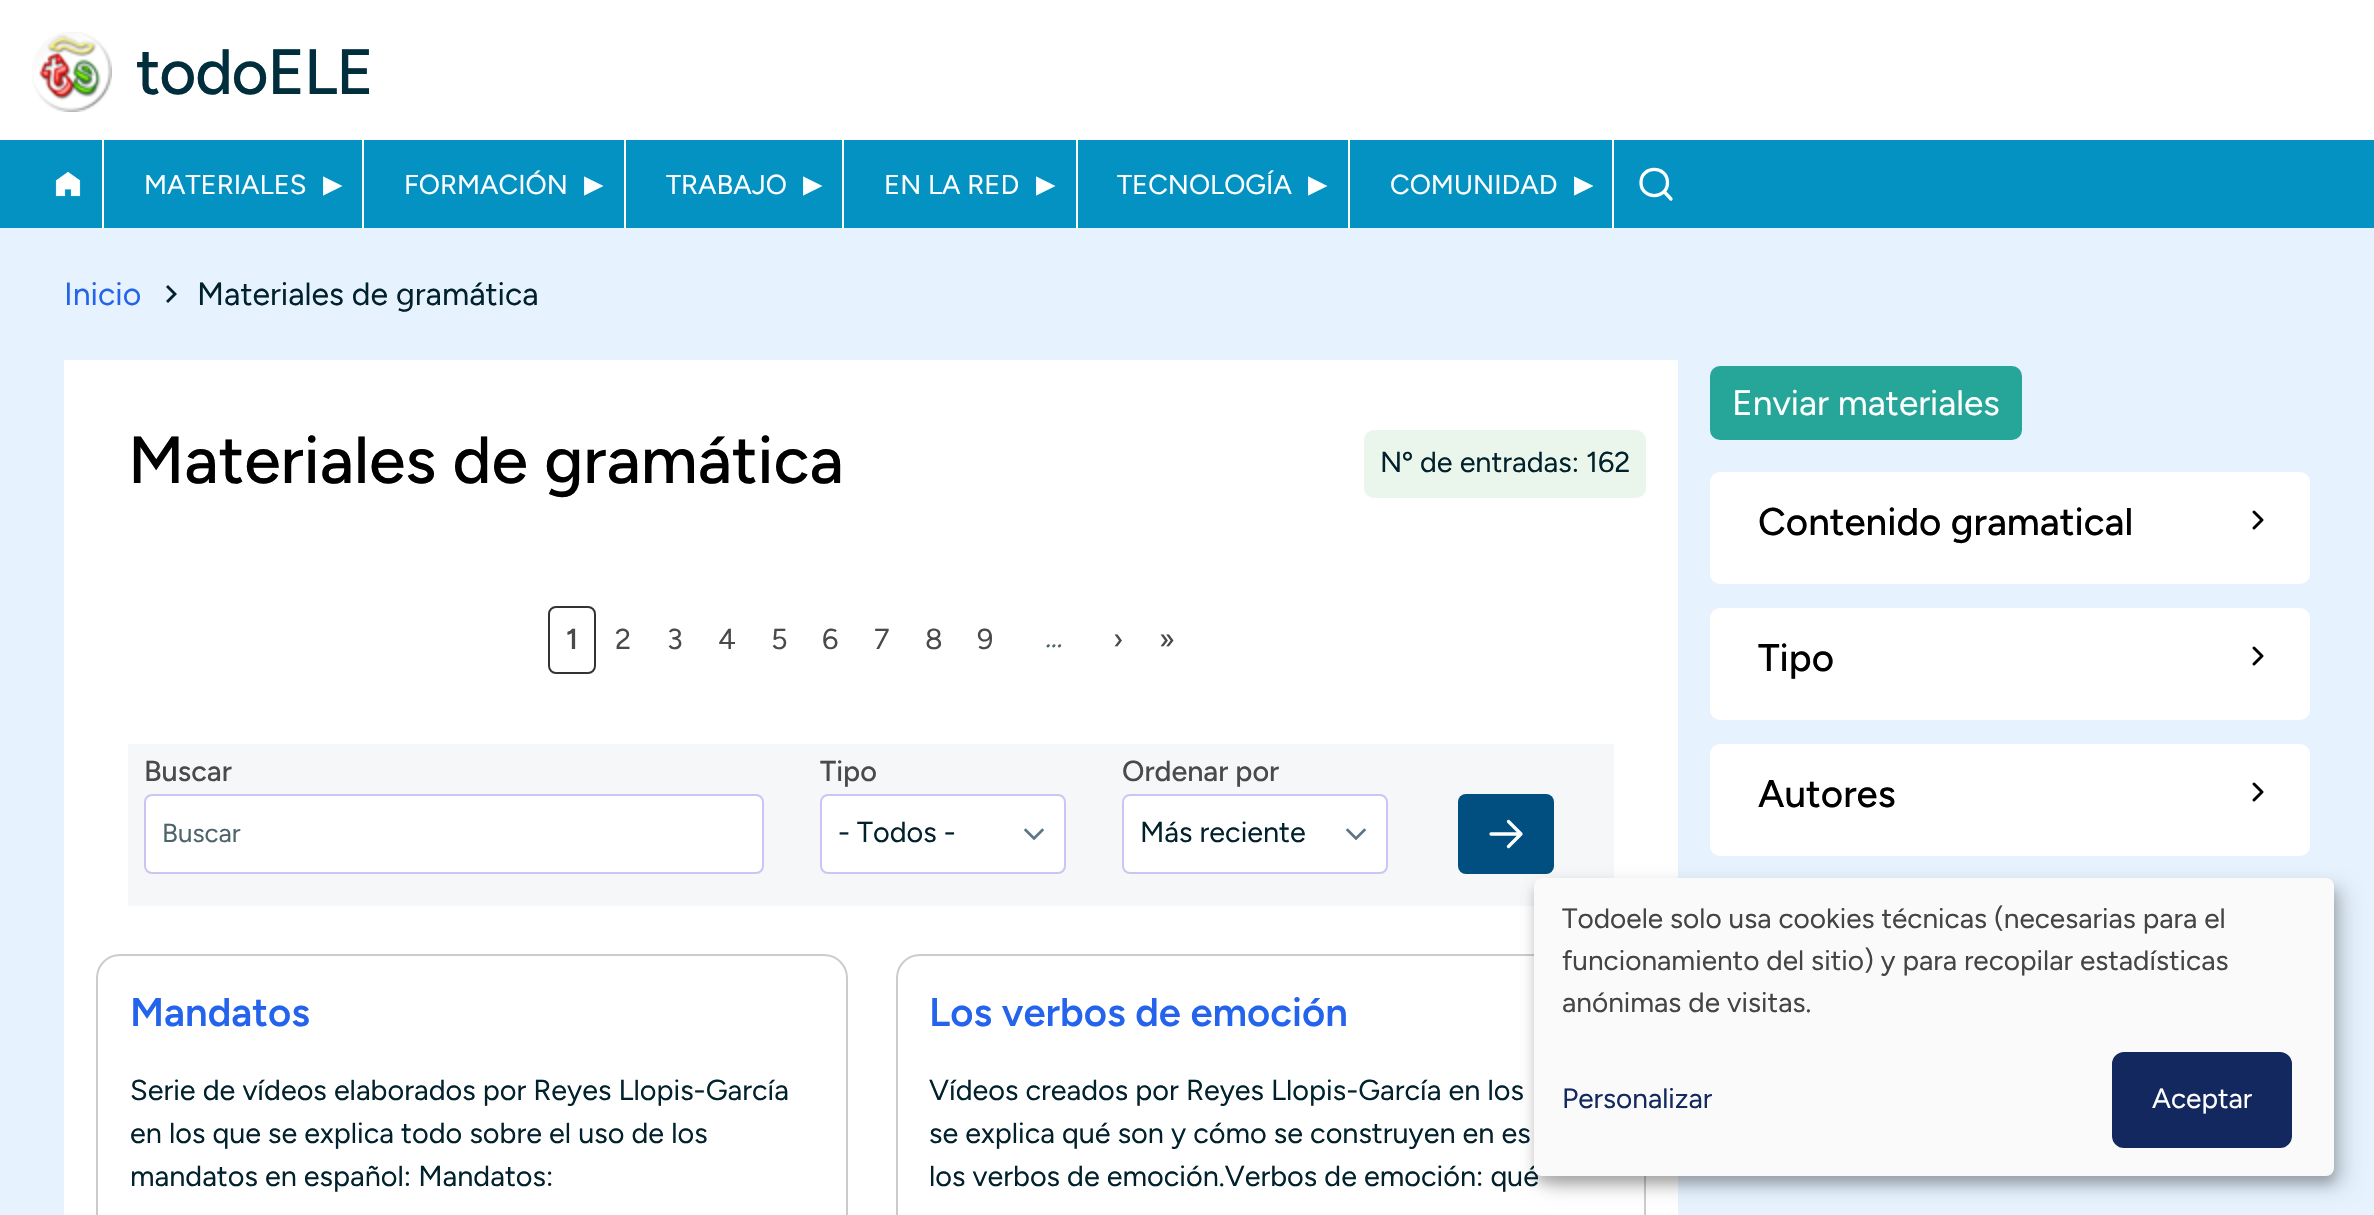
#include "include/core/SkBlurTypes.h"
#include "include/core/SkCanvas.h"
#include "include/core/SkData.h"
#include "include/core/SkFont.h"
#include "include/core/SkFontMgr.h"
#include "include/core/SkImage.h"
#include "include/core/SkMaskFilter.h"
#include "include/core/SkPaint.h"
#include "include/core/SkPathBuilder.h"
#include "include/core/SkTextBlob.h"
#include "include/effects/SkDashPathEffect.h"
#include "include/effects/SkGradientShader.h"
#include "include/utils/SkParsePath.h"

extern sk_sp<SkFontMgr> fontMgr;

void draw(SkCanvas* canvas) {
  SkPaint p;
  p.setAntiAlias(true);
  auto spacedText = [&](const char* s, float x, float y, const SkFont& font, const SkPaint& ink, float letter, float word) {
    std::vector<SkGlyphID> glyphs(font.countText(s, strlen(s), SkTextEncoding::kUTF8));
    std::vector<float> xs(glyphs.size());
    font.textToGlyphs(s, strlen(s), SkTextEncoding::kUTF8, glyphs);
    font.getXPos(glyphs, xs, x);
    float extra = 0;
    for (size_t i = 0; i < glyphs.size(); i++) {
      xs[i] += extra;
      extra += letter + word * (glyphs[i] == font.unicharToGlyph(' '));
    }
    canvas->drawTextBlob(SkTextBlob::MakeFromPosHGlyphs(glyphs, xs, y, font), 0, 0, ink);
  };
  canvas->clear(SkColorSetRGB(230, 243, 255));
  p.setColor(SK_ColorWHITE);
  canvas->drawRect(SkRect::MakeLTRB(0, 0, 2374, 140), p);
  canvas->drawImageRect(SkImages::DeferredFromEncodedData(SkData::MakeFromFileName("images/1.png")), SkRect::MakeLTRB(32, 32, 112, 112), SkSamplingOptions());
  p.setColor(SkColorSetRGB(4, 146, 194));
  canvas->drawRect(SkRect::MakeLTRB(0, 140, 2374, 228), p);
  p.setColor(SK_ColorWHITE);
  canvas->drawRect(SkRect::MakeLTRB(102, 140, 104, 228), p);
  canvas->drawImageRect(SkImages::DeferredFromEncodedData(SkData::MakeFromFileName("images/2.png")), SkRect::MakeLTRB(55, 172, 81, 197), SkSamplingOptions());
  canvas->drawRect(SkRect::MakeLTRB(362, 140, 364, 228), p);
  canvas->drawRect(SkRect::MakeLTRB(624, 140, 626, 228), p);
  canvas->drawRect(SkRect::MakeLTRB(842, 140, 844, 228), p);
  canvas->drawRect(SkRect::MakeLTRB(1076, 140, 1078, 228), p);
  canvas->drawRect(SkRect::MakeLTRB(1348, 140, 1350, 228), p);
  canvas->drawRect(SkRect::MakeLTRB(1612, 140, 1614, 228), p);
  p.setStyle(SkPaint::kStroke_Style);
  p.setStrokeWidth(3.3f);
  p.setStrokeCap(SkPaint::kRound_Cap);
  p.setStrokeJoin(SkPaint::kRound_Join);
  canvas->drawPath(SkPathBuilder().moveTo(1664, 191.5f).lineTo(1671, 199).moveTo(1667.5f, 182.5f).cubicTo(1667.5f, 200, 1641, 200, 1641, 182.5f).cubicTo(1641, 165, 1667.5f, 165, 1667.5f, 182.5f).close().detach(), p);
  p.setStyle(SkPaint::kFill_Style);
  p.setColor(SkColorSetRGB(1, 33, 44));
  canvas->drawPath(SkPathBuilder().moveTo(173, 294).lineTo(166, 287).lineTo(168, 285).lineTo(177, 294).lineTo(168, 303).lineTo(166, 301).close().detach(), p);
  p.setColor(SK_ColorWHITE);
  canvas->drawRect(SkRect::MakeLTRB(64, 360, 1678, 1215), p);
  p.setColor(SkColorSetRGB(234, 246, 235));
  canvas->drawRoundRect(SkRect::MakeLTRB(1364, 430, 1646, 498), 10, 10, p);
  p.setStyle(SkPaint::kStroke_Style);
  p.setStrokeWidth(2);
  p.setStrokeCap(SkPaint::kButt_Cap);
  p.setStrokeJoin(SkPaint::kMiter_Join);
  p.setColor(SkColorSetRGB(51, 51, 51));
  canvas->drawRoundRect(SkRect::MakeLTRB(549, 607, 595, 673), 7, 7, p);
  p.setStyle(SkPaint::kFill_Style);
  p.setColor(SkColorSetRGB(246, 247, 249));
  canvas->drawRect(SkRect::MakeLTRB(128, 744, 1614, 906), p);
  p.setColor(SK_ColorWHITE);
  canvas->drawRoundRect(SkRect::MakeLTRB(145, 795, 763, 873), 7, 7, p);
  p.setStyle(SkPaint::kStroke_Style);
  p.setColor(SkColorSetRGB(204, 196, 244));
  canvas->drawRoundRect(SkRect::MakeLTRB(145, 795, 763, 873), 7, 7, p);
  p.setStyle(SkPaint::kFill_Style);
  p.setColor(SK_ColorWHITE);
  canvas->drawRoundRect(SkRect::MakeLTRB(820, 794, 1066, 874), 8, 8, p);
  canvas->drawImageRect(SkImages::DeferredFromEncodedData(SkData::MakeFromFileName("images/3.png")), SkRect::MakeLTRB(1024, 828, 1044, 840), SkSamplingOptions());
  p.setStyle(SkPaint::kStroke_Style);
  p.setColor(SkColorSetRGB(204, 196, 244));
  canvas->drawRoundRect(SkRect::MakeLTRB(821, 795, 1065, 873), 7, 7, p);
  p.setStyle(SkPaint::kFill_Style);
  p.setColor(SK_ColorWHITE);
  canvas->drawRoundRect(SkRect::MakeLTRB(1122, 794, 1388, 874), 8, 8, p);
  canvas->drawImageRect(SkImages::DeferredFromEncodedData(SkData::MakeFromFileName("images/3.png")), SkRect::MakeLTRB(1346, 828, 1366, 840), SkSamplingOptions());
  p.setStyle(SkPaint::kStroke_Style);
  p.setColor(SkColorSetRGB(204, 196, 244));
  canvas->drawRoundRect(SkRect::MakeLTRB(1123, 795, 1387, 873), 7, 7, p);
  p.setStyle(SkPaint::kFill_Style);
  p.setColor(SkColorSetRGB(0, 79, 128));
  canvas->drawRoundRect(SkRect::MakeLTRB(1458, 794, 1554, 874), 8, 8, p);
  p.setStyle(SkPaint::kStroke_Style);
  p.setStrokeWidth(3.3f);
  p.setStrokeCap(SkPaint::kRound_Cap);
  p.setStrokeJoin(SkPaint::kRound_Join);
  p.setColor(SK_ColorWHITE);
  canvas->drawPath(SkPathBuilder().moveTo(1508.5f, 821.5f).lineTo(1521, 834).moveTo(1521, 834).lineTo(1508.5f, 846.5f).moveTo(1521, 834).lineTo(1491, 834).detach(), p);
  p.setStrokeWidth(2);
  p.setStrokeCap(SkPaint::kButt_Cap);
  p.setStrokeJoin(SkPaint::kMiter_Join);
  p.setColor(SkColorSetRGB(204, 204, 204));
  canvas->drawRoundRect(SkRect::MakeLTRB(97, 955, 847, 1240), 23, 23, p);
  canvas->drawRoundRect(SkRect::MakeLTRB(897, 955, 1645, 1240), 23, 23, p);
  p.setStyle(SkPaint::kFill_Style);
  p.setColor(SkColorSetRGB(38, 166, 153));
  canvas->drawRoundRect(SkRect::MakeLTRB(1711, 367, 2021, 439), 9, 9, p);
  p.setStyle(SkPaint::kStroke_Style);
  p.setColor(SkColorSetRGB(38, 166, 154));
  canvas->drawRoundRect(SkRect::MakeLTRB(1711, 367, 2021, 439), 9, 9, p);
  p.setStyle(SkPaint::kFill_Style);
  p.setColor(SK_ColorWHITE);
  canvas->drawRoundRect(SkRect::MakeLTRB(1710, 472, 2310, 584), 10, 10, p);
  p.setStyle(SkPaint::kStroke_Style);
  p.setStrokeWidth(3);
  p.setStrokeCap(SkPaint::kRound_Cap);
  p.setStrokeJoin(SkPaint::kRound_Join);
  p.setColor(SK_ColorBLACK);
  canvas->drawPath(SkPathBuilder().moveTo(2254, 512).lineTo(2262, 520).lineTo(2254, 528).detach(), p);
  p.setStyle(SkPaint::kFill_Style);
  p.setColor(SK_ColorWHITE);
  canvas->drawRoundRect(SkRect::MakeLTRB(1710, 608, 2310, 720), 10, 10, p);
  p.setStyle(SkPaint::kStroke_Style);
  p.setColor(SK_ColorBLACK);
  canvas->drawPath(SkPathBuilder().moveTo(2254, 648).lineTo(2262, 656).lineTo(2254, 664).detach(), p);
  p.setStyle(SkPaint::kFill_Style);
  p.setColor(SK_ColorWHITE);
  canvas->drawRoundRect(SkRect::MakeLTRB(1710, 744, 2310, 856), 10, 10, p);
  p.setStyle(SkPaint::kStroke_Style);
  p.setColor(SK_ColorBLACK);
  canvas->drawPath(SkPathBuilder().moveTo(2254, 784).lineTo(2262, 792).lineTo(2254, 800).detach(), p);
  p.setStyle(SkPaint::kFill_Style);
  p.setColor(SkColorSetARGB(48, 0, 0, 0));
  p.setMaskFilter(SkMaskFilter::MakeBlur(kNormal_SkBlurStyle, 10));
  canvas->drawRoundRect(SkRect::MakeLTRB(1544, 888, 2344, 1186), 8, 8, p);
  p.setMaskFilter(nullptr);
  p.setColor(SkColorSetARGB(51, 0, 0, 0));
  p.setMaskFilter(SkMaskFilter::MakeBlur(kNormal_SkBlurStyle, 6));
  canvas->drawRoundRect(SkRect::MakeLTRB(1534, 886, 2334, 1184), 8, 8, p);
  p.setMaskFilter(nullptr);
  SkFont font1(fontMgr->matchFamilyStyle("Figtree", SkFontStyle(500, SkFontStyle::kNormal_Width, SkFontStyle::kUpright_Slant)), 64);
  font1.setSubpixel(true);
  p.setColor(SkColorSetRGB(1, 46, 61));
  spacedText("todoELE", 136, 94, font1, p, -1.25f, 0);
  SkFont font2(fontMgr->matchFamilyStyle("Figtree", SkFontStyle::Normal()), 27.25f);
  font2.setSubpixel(true);
  p.setColor(SK_ColorWHITE);
  canvas->drawString("MATERIALES", 144, 194, font2, p);
  SkFont font3(fontMgr->matchFamilyStyle("DejaVu Sans", SkFontStyle::Normal()), 38.5f);
  font3.setSubpixel(true);
  canvas->drawString("▸", 323, 196, font3, p);
  canvas->drawString("FORMACIÓN", 404, 194, font2, p);
  canvas->drawString("▸", 584, 196, font3, p);
  canvas->drawString("TRABAJO", 666, 194, font2, p);
  canvas->drawString("▸", 803, 196, font3, p);
  canvas->drawString("EN LA RED", 884, 194, font2, p);
  canvas->drawString("▸", 1036, 196, font3, p);
  canvas->drawString("TECNOLOGÍA", 1117, 194, font2, p);
  canvas->drawString("▸", 1308, 196, font3, p);
  canvas->drawString("COMUNIDAD", 1390, 194, font2, p);
  canvas->drawString("▸", 1574, 196, font3, p);
  SkFont font4(fontMgr->matchFamilyStyle("Figtree", SkFontStyle::Normal()), 32);
  font4.setSubpixel(true);
  p.setColor(SkColorSetRGB(36, 99, 235));
  canvas->drawString("Inicio", 64, 305, font4, p);
  p.setColor(SkColorSetRGB(1, 33, 44));
  canvas->drawString("Materiales de gramática", 197, 305, font4, p);
  SkFont font5(fontMgr->matchFamilyStyle("Figtree", SkFontStyle(500, SkFontStyle::kNormal_Width, SkFontStyle::kUpright_Slant)), 66.4f);
  font5.setSubpixel(true);
  p.setColor(SK_ColorBLACK);
  canvas->drawString("Materiales de gramática", 128, 483, font5, p);
  SkFont font6(fontMgr->matchFamilyStyle("Figtree", SkFontStyle::Normal()), 28.8f);
  font6.setSubpixel(true);
  p.setColor(SkColorSetRGB(1, 33, 44));
  canvas->drawString("Nº de entradas: 162", 1380, 472, font6, p);
  SkFont font7(fontMgr->matchFamilyStyle("Figtree", SkFontStyle(600, SkFontStyle::kNormal_Width, SkFontStyle::kUpright_Slant)), 28.8f);
  font7.setSubpixel(true);
  p.setColor(SkColorSetRGB(74, 74, 74));
  canvas->drawString("1", 566, 649, font7, p);
  canvas->drawString("2", 615, 649, font6, p);
  canvas->drawString("3", 667, 649, font6, p);
  canvas->drawString("4", 718, 649, font6, p);
  canvas->drawString("5", 771, 649, font6, p);
  canvas->drawString("6", 822, 649, font6, p);
  canvas->drawString("7", 874, 649, font6, p);
  canvas->drawString("8", 925, 649, font6, p);
  canvas->drawString("9", 977, 649, font6, p);
  SkFont font8(fontMgr->matchFamilyStyle("Figtree", SkFontStyle::Italic()), 28);
  font8.setSubpixel(true);
  p.setColor(SkColorSetRGB(77, 100, 107));
  canvas->drawString("…", 1045, 647, font8, p);
  p.setColor(SkColorSetRGB(74, 74, 74));
  canvas->drawString("›", 1113, 649, font6, p);
  canvas->drawString("»", 1159, 649, font6, p);
  SkFont font9(fontMgr->matchFamilyStyle("Figtree", SkFontStyle(500, SkFontStyle::kNormal_Width, SkFontStyle::kUpright_Slant)), 28.8f);
  font9.setSubpixel(true);
  canvas->drawString("Buscar", 144, 781, font9, p);
  SkFont font10(fontMgr->matchFamilyStyle("Figtree", SkFontStyle::Normal()), 26);
  font10.setSubpixel(true);
  p.setColor(SkColorSetRGB(77, 100, 107));
  canvas->drawString("Buscar", 162, 842, font10, p);
  p.setColor(SkColorSetRGB(74, 74, 74));
  canvas->drawString("Tipo", 820, 781, font9, p);
  p.setColor(SkColorSetRGB(1, 33, 44));
  canvas->drawString("- Todos -", 838, 842, font6, p);
  p.setColor(SkColorSetRGB(74, 74, 74));
  canvas->drawString("Ordenar por", 1122, 781, font9, p);
  p.setColor(SkColorSetRGB(1, 33, 44));
  canvas->drawString("Más reciente", 1140, 842, font6, p);
  SkFont font11(fontMgr->matchFamilyStyle("Figtree", SkFontStyle(600, SkFontStyle::kNormal_Width, SkFontStyle::kUpright_Slant)), 40);
  font11.setSubpixel(true);
  p.setColor(SkColorSetRGB(36, 99, 235));
  canvas->drawString("Mandatos", 130, 1026, font11, p);
  p.setColor(SkColorSetRGB(1, 33, 44));
  canvas->drawString("Serie de vídeos elaborados por Reyes Llopis-García", 130, 1100, font6, p);
  canvas->drawString("en los que se explica todo sobre el uso de los", 130, 1143, font6, p);
  canvas->drawString("mandatos en español: Mandatos:", 130, 1186, font6, p);
  p.setColor(SkColorSetRGB(36, 99, 235));
  canvas->drawString("Los verbos de emoción", 929, 1026, font11, p);
  p.setColor(SkColorSetRGB(1, 33, 44));
  canvas->drawString("Vídeos creados por Reyes Llopis-García en los", 929, 1100, font6, p);
  canvas->drawString("se explica qué son y cómo se construyen en es", 929, 1143, font6, p);
  canvas->drawString("los verbos de emoción.Verbos de emoción: qué", 929, 1186, font6, p);
  SkFont font12(fontMgr->matchFamilyStyle("Figtree", SkFontStyle::Normal()), 35.25f);
  font12.setSubpixel(true);
  p.setColor(SK_ColorWHITE);
  canvas->drawString("Enviar materiales", 1732, 415, font12, p);
  SkFont font13(fontMgr->matchFamilyStyle("Figtree", SkFontStyle(500, SkFontStyle::kNormal_Width, SkFontStyle::kUpright_Slant)), 38.5f);
  font13.setSubpixel(true);
  p.setColor(SK_ColorBLACK);
  canvas->drawString("Contenido gramatical", 1758, 535, font13, p);
  canvas->drawString("Tipo", 1758, 671, font13, p);
  canvas->drawString("Autores", 1758, 807, font13, p);
  p.setColor(SkColorSetRGB(250, 250, 250));
  canvas->drawRoundRect(SkRect::MakeLTRB(1534, 878, 2334, 1176), 8, 8, p);
  SkFont font14(fontMgr->matchFamilyStyle("Figtree", SkFontStyle::Normal()), 28);
  font14.setSubpixel(true);
  p.setColor(SkColorSetRGB(68, 68, 68));
  canvas->drawString("Todoele solo usa cookies técnicas (necesarias para el", 1562, 928, font14, p);
  canvas->drawString("funcionamiento del sitio) y para recopilar estadísticas", 1562, 970, font14, p);
  canvas->drawString("anónimas de visitas.", 1562, 1012, font14, p);
  p.setColor(SkColorSetRGB(18, 40, 95));
  canvas->drawString("Personalizar", 1562, 1108, font14, p);
  canvas->drawRoundRect(SkRect::MakeLTRB(2115, 1055, 2289, 1145), 9, 9, p);
  p.setStyle(SkPaint::kStroke_Style);
  p.setStrokeWidth(6);
  p.setStrokeCap(SkPaint::kButt_Cap);
  p.setStrokeJoin(SkPaint::kMiter_Join);
  canvas->drawRoundRect(SkRect::MakeLTRB(2115, 1055, 2289, 1145), 9, 9, p);
  p.setStyle(SkPaint::kFill_Style);
  p.setColor(SK_ColorWHITE);
  canvas->drawString("Aceptar", 2152, 1108, font14, p);
}
